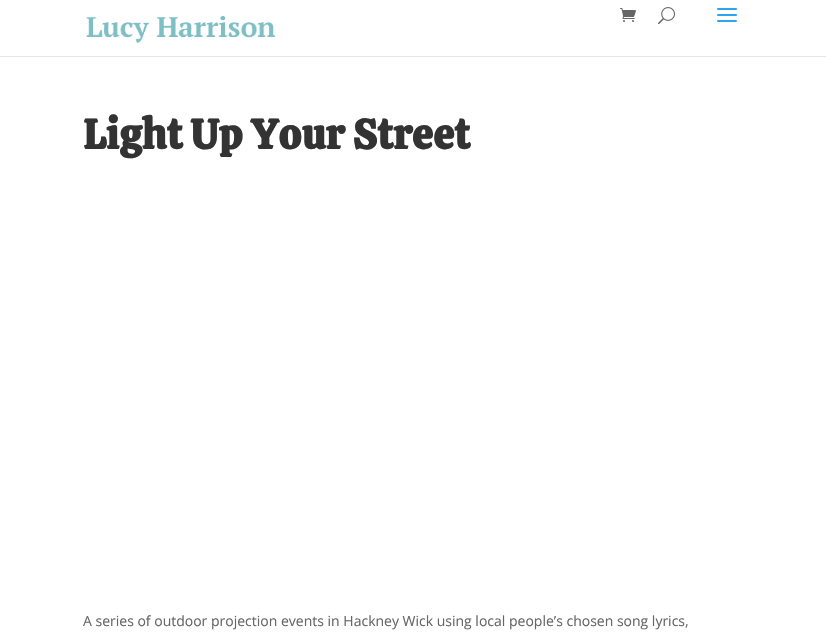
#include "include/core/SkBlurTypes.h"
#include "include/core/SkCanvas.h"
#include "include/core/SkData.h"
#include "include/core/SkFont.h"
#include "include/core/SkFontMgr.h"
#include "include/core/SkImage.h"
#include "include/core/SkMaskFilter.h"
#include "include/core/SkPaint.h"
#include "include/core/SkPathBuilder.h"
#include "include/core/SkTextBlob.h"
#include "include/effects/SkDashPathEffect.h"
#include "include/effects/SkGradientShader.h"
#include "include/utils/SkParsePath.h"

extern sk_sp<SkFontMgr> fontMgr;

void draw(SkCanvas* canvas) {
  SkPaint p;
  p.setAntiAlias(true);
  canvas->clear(SK_ColorWHITE);
  p.setColor(SkColorSetRGB(230, 230, 230));
  canvas->drawRect(SkRect::MakeLTRB(0, 56, 826, 57), p);
  canvas->drawImageRect(SkImages::DeferredFromEncodedData(SkData::MakeFromFileName("images/1.png")), SkRect::MakeLTRB(86, 16, 276, 43), SkSamplingOptions());
  canvas->drawImageRect(SkImages::DeferredFromEncodedData(SkData::MakeFromFileName("images/2.png")), SkRect::MakeLTRB(620, 8, 636, 22), SkSamplingOptions());
  canvas->drawImageRect(SkImages::DeferredFromEncodedData(SkData::MakeFromFileName("images/3.png")), SkRect::MakeLTRB(658, 7, 675, 25), SkSamplingOptions());
  canvas->drawImageRect(SkImages::DeferredFromEncodedData(SkData::MakeFromFileName("images/4.png")), SkRect::MakeLTRB(717, 8, 737, 22), SkSamplingOptions());
  SkFont font1(fontMgr->matchFamilyStyle("Calistoga", SkFontStyle::Bold()), 42);
  font1.setSubpixel(true);
  p.setColor(SkColorSetRGB(51, 51, 51));
  canvas->drawString("Light Up Your Street", 83, 149, font1, p);
  SkFont font2(fontMgr->matchFamilyStyle("Open Sans", SkFontStyle::Normal()), 14);
  font2.setSubpixel(true);
  p.setColor(SkColorSetRGB(102, 102, 102));
  canvas->drawString("A series of outdoor projection events in Hackney Wick using local people’s chosen song lyrics,", 83, 626, font2, p);
}
